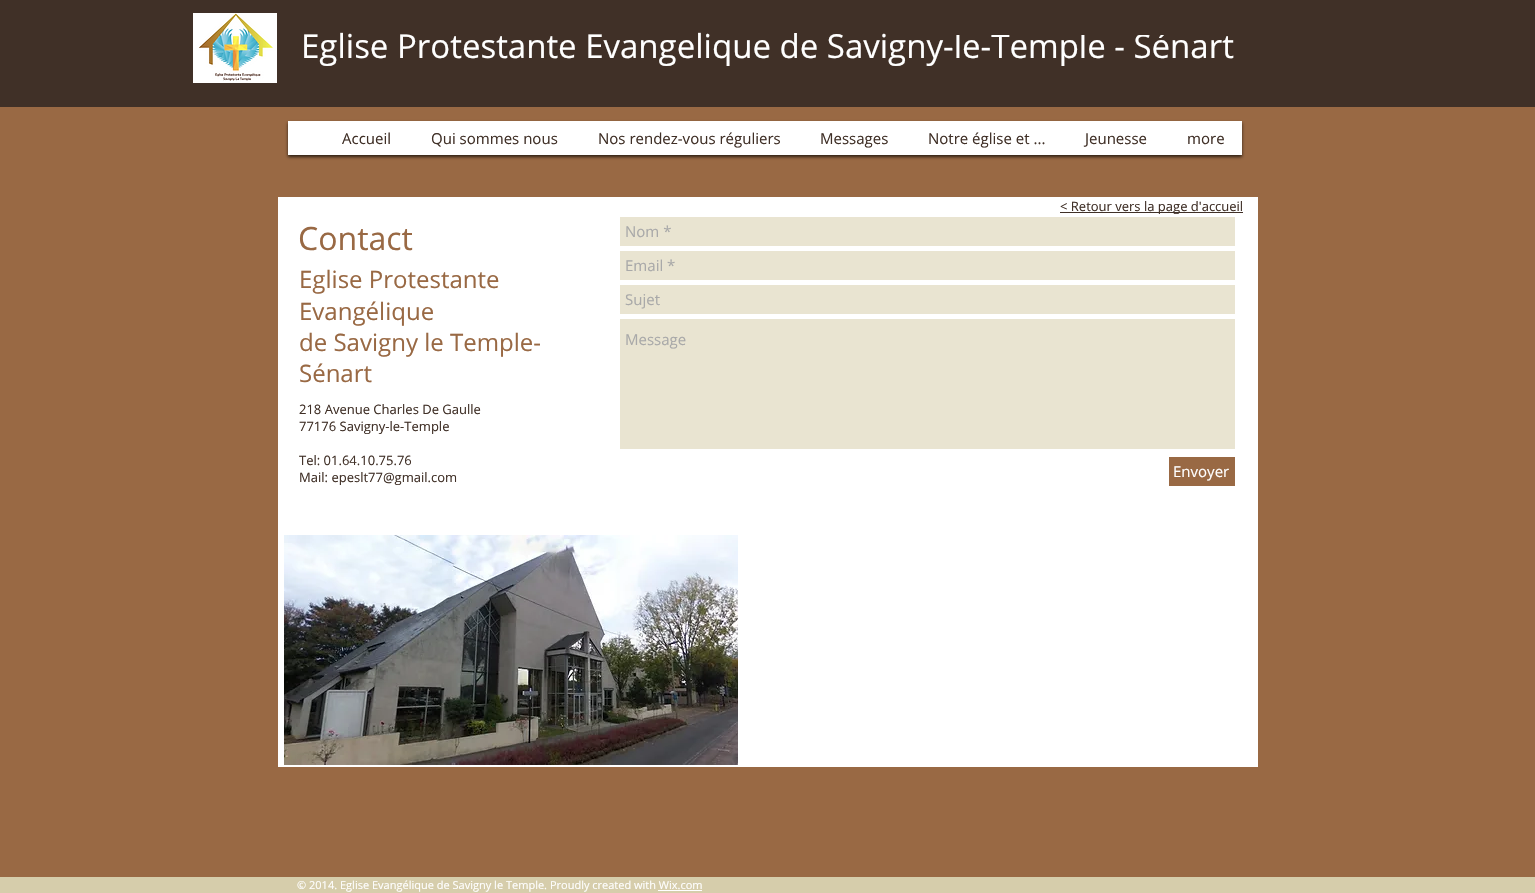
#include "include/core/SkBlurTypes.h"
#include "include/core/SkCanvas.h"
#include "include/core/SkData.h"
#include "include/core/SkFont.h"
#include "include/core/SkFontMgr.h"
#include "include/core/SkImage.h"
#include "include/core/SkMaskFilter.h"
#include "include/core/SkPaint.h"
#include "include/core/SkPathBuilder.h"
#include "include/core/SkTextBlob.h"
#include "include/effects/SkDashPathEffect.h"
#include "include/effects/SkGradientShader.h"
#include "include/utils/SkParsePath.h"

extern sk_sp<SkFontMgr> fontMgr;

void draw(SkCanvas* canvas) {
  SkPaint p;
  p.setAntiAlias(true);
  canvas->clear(SkColorSetRGB(153, 105, 68));
  p.setColor(SkColorSetRGB(64, 48, 39));
  canvas->drawRect(SkRect::MakeLTRB(0, 0, 1535, 107), p);
  canvas->drawImageRect(SkImages::DeferredFromEncodedData(SkData::MakeFromFileName("images/1.png")), SkRect::MakeLTRB(193, 13, 277, 83), SkSamplingOptions());
  p.setColor(SkColorSetARGB(179, 0, 0, 0));
  p.setMaskFilter(SkMaskFilter::MakeBlur(kNormal_SkBlurStyle, 1.5f));
  canvas->drawRect(SkRect::MakeLTRB(288, 123, 1242, 157), p);
  p.setMaskFilter(nullptr);
  p.setColor(SK_ColorWHITE);
  canvas->drawRect(SkRect::MakeLTRB(288, 121, 1242, 155), p);
  canvas->drawRect(SkRect::MakeLTRB(278, 197, 1258, 767), p);
  p.setColor(SkColorSetRGB(64, 48, 39));
  canvas->drawRect(SkRect::MakeLTRB(1060, 212, 1243, 213), p);
  p.setColor(SkColorSetRGB(233, 228, 209));
  canvas->drawRect(SkRect::MakeLTRB(620, 217, 1235, 246), p);
  canvas->drawRect(SkRect::MakeLTRB(620, 251, 1235, 280), p);
  canvas->drawRect(SkRect::MakeLTRB(620, 285, 1235, 314), p);
  canvas->drawRect(SkRect::MakeLTRB(620, 319, 1235, 449), p);
  p.setColor(SkColorSetRGB(153, 105, 68));
  canvas->drawRect(SkRect::MakeLTRB(1169, 457, 1235, 486), p);
  canvas->drawImageRect(SkImages::DeferredFromEncodedData(SkData::MakeFromFileName("images/2.png")), SkRect::MakeLTRB(284, 535, 738, 765), SkSamplingOptions());
  p.setColor(SkColorSetRGB(214, 205, 171));
  canvas->drawRect(SkRect::MakeLTRB(0, 877, 1535, 893), p);
  p.setColor(SK_ColorWHITE);
  canvas->drawRect(SkRect::MakeLTRB(658, 890, 702, 891), p);
  SkFont font1(fontMgr->matchFamilyStyle("Open Sans", SkFontStyle::Normal()), 33);
  font1.setSubpixel(true);
  canvas->drawString("Eglise Protestante Evangelique de Savigny-le-Temple - Sénart", 301, 58, font1, p);
  p.setColor(SkColorSetRGB(64, 48, 39));
  canvas->drawRect(SkRect::MakeLTRB(956, 32, 1166, 35), p);
  SkFont font2(fontMgr->matchFamilyStyle("Open Sans", SkFontStyle::Normal()), 15);
  font2.setSubpixel(true);
  canvas->drawString("Accueil", 342, 144, font2, p);
  canvas->drawString("Qui sommes nous", 431, 144, font2, p);
  canvas->drawString("Nos rendez-vous réguliers", 598, 144, font2, p);
  canvas->drawString("Messages", 820, 144, font2, p);
  canvas->drawString("Notre église et ...", 928, 144, font2, p);
  canvas->drawString("Jeunesse", 1085, 144, font2, p);
  canvas->drawString("more", 1187, 144, font2, p);
  SkFont font3(fontMgr->matchFamilyStyle("Open Sans", SkFontStyle::Normal()), 13);
  font3.setSubpixel(true);
  canvas->drawString("< Retour vers la page d'accueil", 1060, 211, font3, p);
  SkFont font4(fontMgr->matchFamilyStyle("Open Sans", SkFontStyle::Normal()), 32);
  font4.setSubpixel(true);
  p.setColor(SkColorSetRGB(153, 105, 68));
  canvas->drawString("Contact", 298, 250, font4, p);
  p.setColor(SkColorSetRGB(169, 169, 169));
  canvas->drawString("Nom *", 625, 237, font2, p);
  canvas->drawString("Email *", 625, 271, font2, p);
  canvas->drawString("Sujet", 625, 305, font2, p);
  canvas->drawString("Message", 625, 345, font2, p);
  p.setColor(SK_ColorWHITE);
  canvas->drawString("Envoyer", 1173, 477, font2, p);
  SkFont font5(fontMgr->matchFamilyStyle("Open Sans", SkFontStyle::Normal()), 24);
  font5.setSubpixel(true);
  p.setColor(SkColorSetRGB(153, 105, 68));
  canvas->drawString("Eglise Protestante", 299, 288, font5, p);
  canvas->drawString("Evangélique", 299, 320, font5, p);
  canvas->drawString("de Savigny le Temple-", 299, 351, font5, p);
  canvas->drawString("Sénart", 299, 382, font5, p);
  p.setColor(SkColorSetRGB(64, 48, 39));
  canvas->drawString("218 Avenue Charles De Gaulle", 299, 414, font3, p);
  canvas->drawString("77176 Savigny-le-Temple", 299, 431, font3, p);
  canvas->drawString("Tel: 01.64.10.75.76", 299, 465, font3, p);
  canvas->drawString("Mail: epeslt77@gmail.com", 299, 482, font3, p);
  SkFont font6(fontMgr->matchFamilyStyle("Open Sans", SkFontStyle::Normal()), 11);
  font6.setSubpixel(true);
  p.setColor(SK_ColorWHITE);
  canvas->drawString("© 2014. Eglise Evangélique de Savigny le Temple. Proudly created with Wix.com", 297, 889, font6, p);
}
